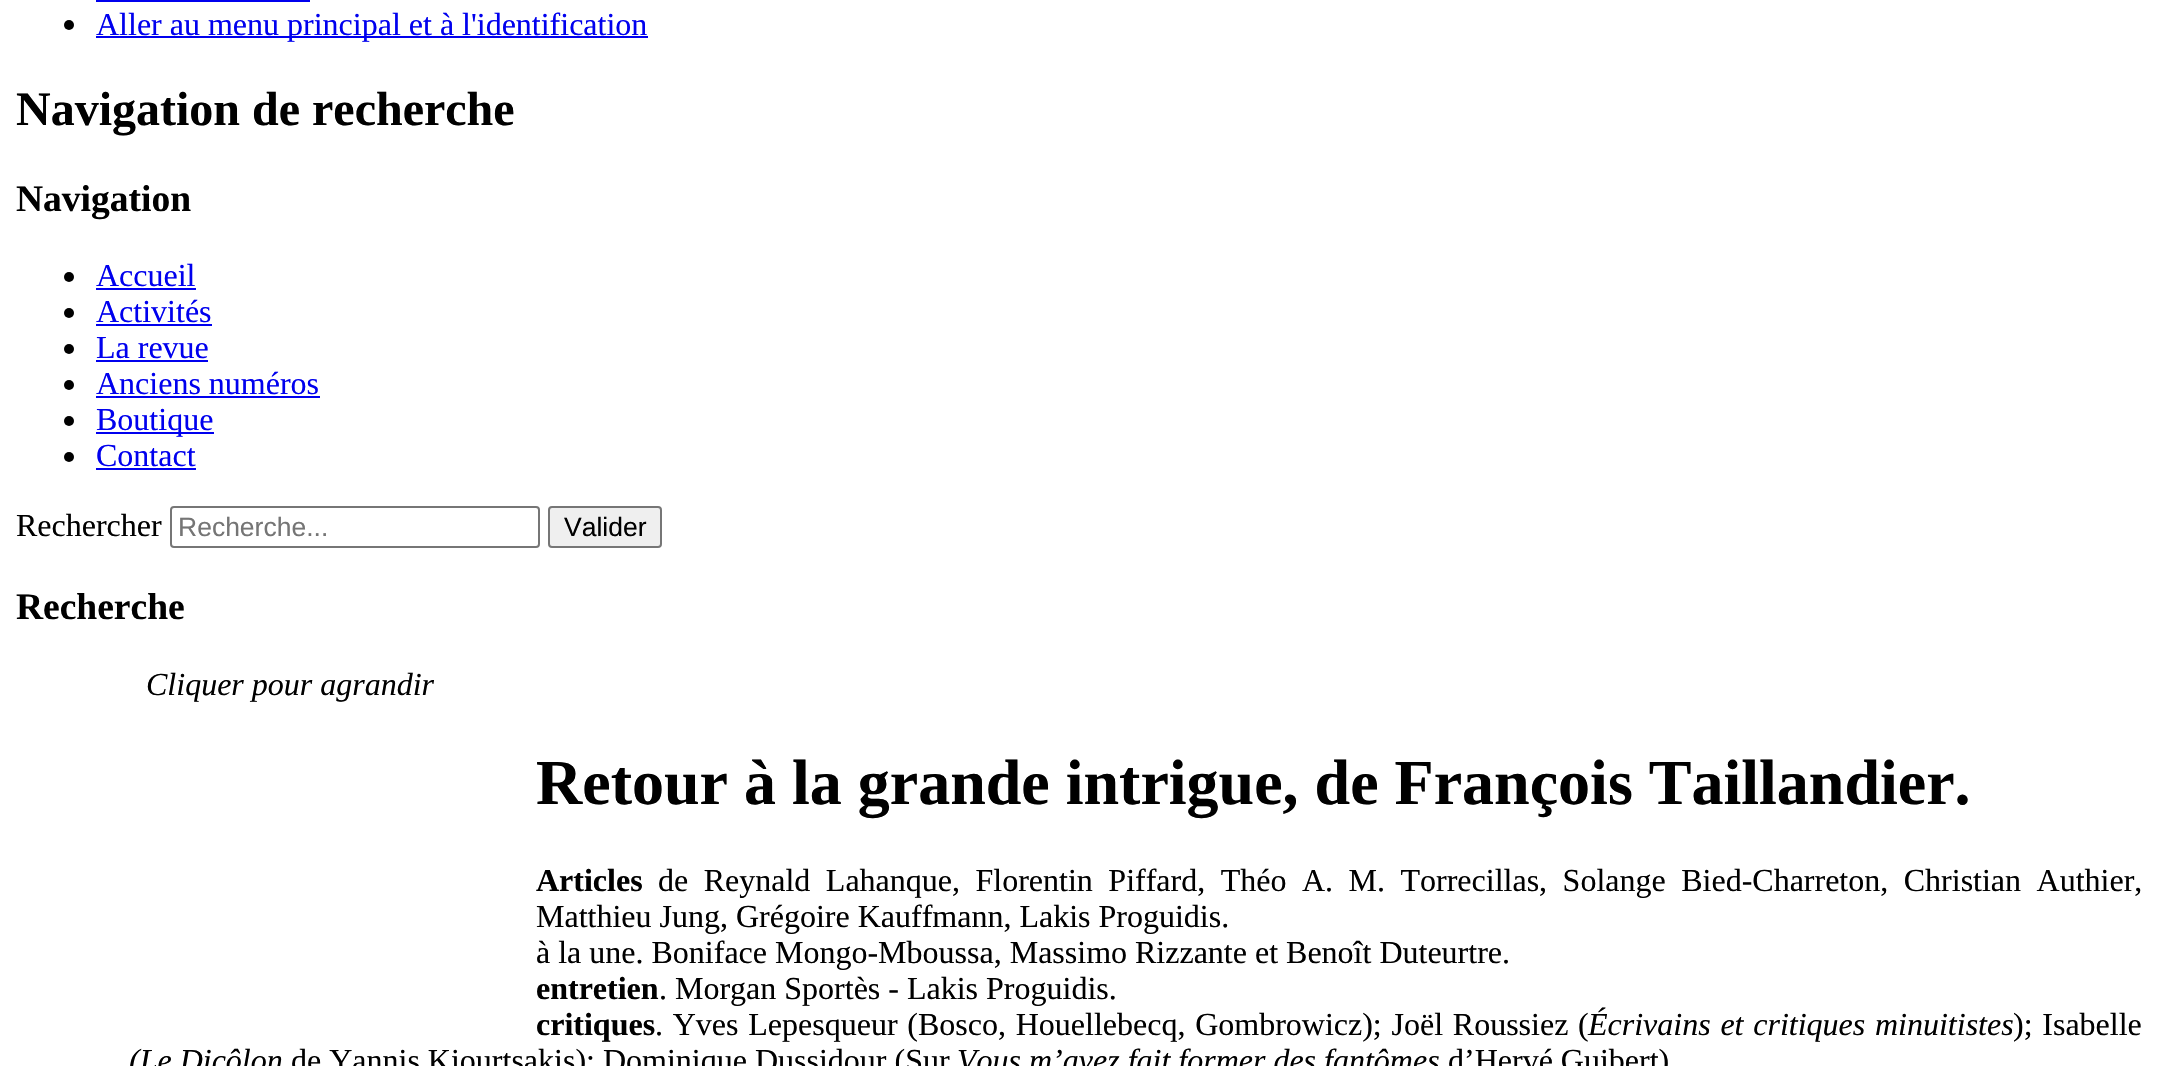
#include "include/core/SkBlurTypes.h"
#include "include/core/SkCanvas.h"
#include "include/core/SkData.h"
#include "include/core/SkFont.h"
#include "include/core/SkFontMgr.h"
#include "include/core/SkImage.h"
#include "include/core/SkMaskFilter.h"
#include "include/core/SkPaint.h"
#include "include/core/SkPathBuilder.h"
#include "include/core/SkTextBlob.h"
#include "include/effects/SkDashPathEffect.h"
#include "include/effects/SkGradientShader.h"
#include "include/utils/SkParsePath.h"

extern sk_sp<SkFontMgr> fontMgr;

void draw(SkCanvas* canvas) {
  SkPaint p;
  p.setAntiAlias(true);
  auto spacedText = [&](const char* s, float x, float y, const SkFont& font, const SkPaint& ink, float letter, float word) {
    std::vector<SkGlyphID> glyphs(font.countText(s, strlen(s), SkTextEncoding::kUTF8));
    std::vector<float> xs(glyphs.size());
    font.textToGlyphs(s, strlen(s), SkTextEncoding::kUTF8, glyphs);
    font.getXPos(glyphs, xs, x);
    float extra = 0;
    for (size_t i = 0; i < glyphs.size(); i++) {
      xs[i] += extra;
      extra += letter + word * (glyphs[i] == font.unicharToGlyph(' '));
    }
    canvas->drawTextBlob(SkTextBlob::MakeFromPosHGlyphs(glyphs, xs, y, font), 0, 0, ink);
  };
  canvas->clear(SK_ColorWHITE);
  p.setColor(SkColorSetRGB(0, 0, 238));
  canvas->drawRect(SkRect::MakeLTRB(96, 0, 310, 2), p);
  p.setColor(SK_ColorBLACK);
  canvas->drawCircle(69, 25, 5, p);
  p.setColor(SkColorSetRGB(0, 0, 238));
  canvas->drawRect(SkRect::MakeLTRB(96, 36, 648, 38), p);
  p.setColor(SK_ColorBLACK);
  canvas->drawCircle(69, 277, 5, p);
  p.setColor(SkColorSetRGB(0, 0, 238));
  canvas->drawRect(SkRect::MakeLTRB(96, 288, 196, 290), p);
  p.setColor(SK_ColorBLACK);
  canvas->drawCircle(69, 313, 5, p);
  p.setColor(SkColorSetRGB(0, 0, 238));
  canvas->drawRect(SkRect::MakeLTRB(96, 324, 212, 326), p);
  p.setColor(SK_ColorBLACK);
  canvas->drawCircle(69, 349, 5, p);
  p.setColor(SkColorSetRGB(0, 0, 238));
  canvas->drawRect(SkRect::MakeLTRB(96, 360, 208, 362), p);
  p.setColor(SK_ColorBLACK);
  canvas->drawCircle(69, 385, 5, p);
  p.setColor(SkColorSetRGB(0, 0, 238));
  canvas->drawRect(SkRect::MakeLTRB(96, 396, 320, 398), p);
  p.setColor(SK_ColorBLACK);
  canvas->drawCircle(69, 421, 5, p);
  p.setColor(SkColorSetRGB(0, 0, 238));
  canvas->drawRect(SkRect::MakeLTRB(96, 432, 214, 434), p);
  p.setColor(SK_ColorBLACK);
  canvas->drawCircle(69, 457, 5, p);
  p.setColor(SkColorSetRGB(0, 0, 238));
  canvas->drawRect(SkRect::MakeLTRB(96, 468, 196, 470), p);
  p.setStyle(SkPaint::kStroke_Style);
  p.setStrokeWidth(2);
  p.setColor(SkColorSetRGB(118, 118, 118));
  canvas->drawRoundRect(SkRect::MakeLTRB(171, 507, 539, 547), 3, 3, p);
  p.setStyle(SkPaint::kFill_Style);
  p.setColor(SkColorSetRGB(239, 239, 239));
  canvas->drawRoundRect(SkRect::MakeLTRB(549, 507, 661, 547), 3, 3, p);
  p.setStyle(SkPaint::kStroke_Style);
  p.setColor(SkColorSetRGB(118, 118, 118));
  canvas->drawRoundRect(SkRect::MakeLTRB(549, 507, 661, 547), 3, 3, p);
  SkFont font1(fontMgr->matchFamilyStyle("Liberation Serif", SkFontStyle::Normal()), 32);
  font1.setSubpixel(true);
  p.setStyle(SkPaint::kFill_Style);
  p.setColor(SkColorSetRGB(0, 0, 238));
  canvas->drawString("Aller au menu principal et à l'identification", 96, 35, font1, p);
  SkFont font2(fontMgr->matchFamilyStyle("Liberation Serif", SkFontStyle::Bold()), 48);
  font2.setSubpixel(true);
  p.setColor(SK_ColorBLACK);
  canvas->drawString("Navigation de recherche", 16, 125, font2, p);
  SkFont font3(fontMgr->matchFamilyStyle("Liberation Serif", SkFontStyle::Bold()), 37.5f);
  font3.setSubpixel(true);
  canvas->drawString("Navigation", 16, 211, font3, p);
  p.setColor(SkColorSetRGB(0, 0, 238));
  canvas->drawString("Accueil", 96, 286, font1, p);
  canvas->drawString("Activités", 96, 322, font1, p);
  canvas->drawString("La revue", 96, 358, font1, p);
  canvas->drawString("Anciens numéros", 96, 394, font1, p);
  canvas->drawString("Boutique", 96, 430, font1, p);
  canvas->drawString("Contact", 96, 466, font1, p);
  p.setColor(SK_ColorBLACK);
  canvas->drawString("Rechercher", 16, 536, font1, p);
  SkFont font4(fontMgr->matchFamilyStyle("Liberation Sans", SkFontStyle::Normal()), 26.5f);
  font4.setSubpixel(true);
  p.setColor(SkColorSetRGB(117, 117, 117));
  canvas->drawString("Recherche...", 178, 536, font4, p);
  p.setColor(SK_ColorBLACK);
  canvas->drawString("Valider", 564, 536, font4, p);
  canvas->drawString("Recherche", 16, 619, font3, p);
  SkFont font5(fontMgr->matchFamilyStyle("Liberation Serif", SkFontStyle::Italic()), 32);
  font5.setSubpixel(true);
  canvas->drawString("Cliquer pour agrandir", 146, 695, font5, p);
  SkFont font6(fontMgr->matchFamilyStyle("Liberation Serif", SkFontStyle::Bold()), 64);
  font6.setSubpixel(true);
  canvas->drawString("Retour à la grande intrigue, de François Taillandier.", 536, 804, font6, p);
  SkFont font7(fontMgr->matchFamilyStyle("Liberation Serif", SkFontStyle::Bold()), 32);
  font7.setSubpixel(true);
  canvas->drawString("Articles", 536, 891, font7, p);
  spacedText("de Reynald Lahanque, Florentin Piffard, Théo A. M. Torrecillas, Solange Bied-Charreton, Christian Authier,", 658, 891, font1, p, 0, 7.5f);
  canvas->drawString("Matthieu Jung, Grégoire Kauffmann, Lakis Proguidis.", 536, 927, font1, p);
  canvas->drawString("à la une. Boniface Mongo-Mboussa, Massimo Rizzante et Benoît Duteurtre.", 536, 963, font1, p);
  canvas->drawString("entretien", 536, 999, font7, p);
  canvas->drawString(". Morgan Sportès - Lakis Proguidis.", 659, 999, font1, p);
  canvas->drawString("critiques", 536, 1035, font7, p);
  spacedText(". Yves Lepesqueur (Bosco, Houellebecq, Gombrowicz); Joël Roussiez (", 655, 1035, font1, p, 0, 1.75f);
  spacedText("Écrivains et critiques minuitistes", 1588, 1035, font5, p, 0, 1.75f);
  spacedText("); Isabelle", 2013, 1035, font1, p, 0, 1.75f);
  canvas->drawString("(Le Dicôlon", 129, 1071, font5, p);
  canvas->drawString("de Yannis Kiourtsakis); Dominique Dussidour (Sur", 291, 1071, font1, p);
  canvas->drawString("Vous m’avez fait former des fantômes", 957, 1071, font5, p);
  canvas->drawString("d’Hervé Guibert)", 1448, 1071, font1, p);
}
